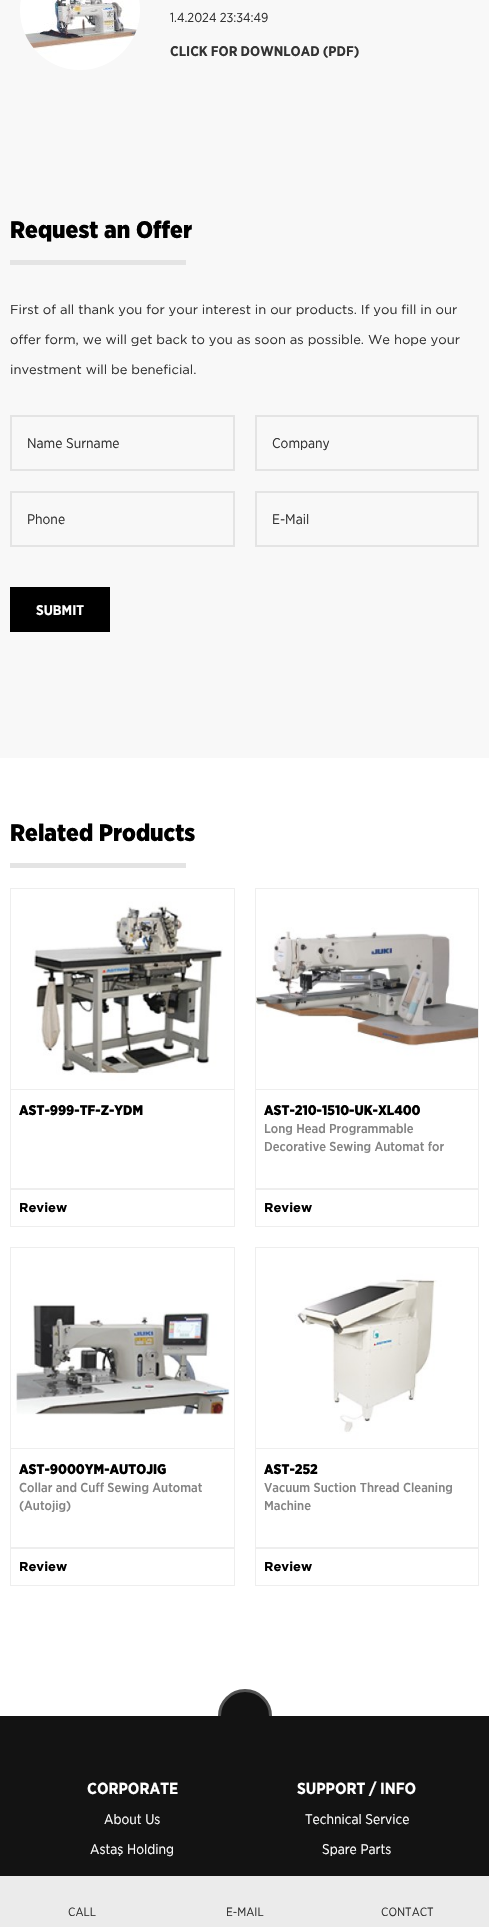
#include "include/core/SkBlurTypes.h"
#include "include/core/SkCanvas.h"
#include "include/core/SkData.h"
#include "include/core/SkFont.h"
#include "include/core/SkFontMgr.h"
#include "include/core/SkImage.h"
#include "include/core/SkMaskFilter.h"
#include "include/core/SkPaint.h"
#include "include/core/SkPathBuilder.h"
#include "include/core/SkTextBlob.h"
#include "include/effects/SkDashPathEffect.h"
#include "include/effects/SkGradientShader.h"
#include "include/utils/SkParsePath.h"

extern sk_sp<SkFontMgr> fontMgr;

void draw(SkCanvas* canvas) {
  SkPaint p;
  p.setAntiAlias(true);
  canvas->clear(SK_ColorWHITE);
  p.setColor(SkColorSetRGB(248, 248, 248));
  canvas->drawRect(SkRect::MakeLTRB(0, 0, 489, 758), p);
  canvas->drawImageRect(SkImages::DeferredFromEncodedData(SkData::MakeFromFileName("images/1.png")), SkRect::MakeLTRB(20, 0, 140, 70), SkSamplingOptions());
  p.setColor(SkColorSetRGB(228, 228, 228));
  canvas->drawRect(SkRect::MakeLTRB(10, 260, 186, 265), p);
  p.setStyle(SkPaint::kStroke_Style);
  p.setStrokeWidth(2);
  canvas->drawRect(SkRect::MakeLTRB(11, 416, 234, 470), p);
  canvas->drawRect(SkRect::MakeLTRB(256, 416, 478, 470), p);
  canvas->drawRect(SkRect::MakeLTRB(11, 492, 234, 546), p);
  canvas->drawRect(SkRect::MakeLTRB(256, 492, 478, 546), p);
  p.setStyle(SkPaint::kFill_Style);
  p.setColor(SK_ColorBLACK);
  canvas->drawRect(SkRect::MakeLTRB(10, 587, 110, 632), p);
  p.setColor(SkColorSetRGB(228, 228, 228));
  canvas->drawRect(SkRect::MakeLTRB(10, 863, 186, 868), p);
  p.setStyle(SkPaint::kStroke_Style);
  p.setStrokeWidth(1);
  p.setColor(SkColorSetRGB(238, 238, 238));
  canvas->drawRect(SkRect::MakeLTRB(10.5f, 888.5f, 234.5f, 1226.5f), p);
  p.setStyle(SkPaint::kFill_Style);
  canvas->drawRect(SkRect::MakeLTRB(11, 1089, 234, 1090), p);
  canvas->drawImageRect(SkImages::DeferredFromEncodedData(SkData::MakeFromFileName("images/2.png")), SkRect::MakeLTRB(11, 889, 234, 1089), SkSamplingOptions());
  canvas->drawRect(SkRect::MakeLTRB(11, 1188, 234, 1190), p);
  p.setStyle(SkPaint::kStroke_Style);
  canvas->drawRect(SkRect::MakeLTRB(255.5f, 888.5f, 478.5f, 1226.5f), p);
  p.setStyle(SkPaint::kFill_Style);
  canvas->drawRect(SkRect::MakeLTRB(256, 1089, 478, 1090), p);
  canvas->drawImageRect(SkImages::DeferredFromEncodedData(SkData::MakeFromFileName("images/3.png")), SkRect::MakeLTRB(256, 889, 478, 1089), SkSamplingOptions());
  canvas->drawRect(SkRect::MakeLTRB(256, 1188, 478, 1190), p);
  p.setStyle(SkPaint::kStroke_Style);
  canvas->drawRect(SkRect::MakeLTRB(10.5f, 1247.5f, 234.5f, 1585.5f), p);
  p.setStyle(SkPaint::kFill_Style);
  canvas->drawRect(SkRect::MakeLTRB(11, 1448, 234, 1449), p);
  canvas->drawImageRect(SkImages::DeferredFromEncodedData(SkData::MakeFromFileName("images/4.png")), SkRect::MakeLTRB(11, 1248, 234, 1448), SkSamplingOptions());
  canvas->drawRect(SkRect::MakeLTRB(11, 1547, 234, 1549), p);
  p.setStyle(SkPaint::kStroke_Style);
  canvas->drawRect(SkRect::MakeLTRB(255.5f, 1247.5f, 478.5f, 1585.5f), p);
  p.setStyle(SkPaint::kFill_Style);
  canvas->drawRect(SkRect::MakeLTRB(256, 1448, 478, 1449), p);
  canvas->drawImageRect(SkImages::DeferredFromEncodedData(SkData::MakeFromFileName("images/5.png")), SkRect::MakeLTRB(256, 1248, 478, 1448), SkSamplingOptions());
  canvas->drawRect(SkRect::MakeLTRB(256, 1547, 478, 1549), p);
  p.setColor(SkColorSetRGB(19, 19, 19));
  canvas->drawCircle(245, 1716, 25.5f, p);
  p.setStyle(SkPaint::kStroke_Style);
  p.setStrokeWidth(3);
  p.setColor(SkColorSetRGB(82, 82, 82));
  canvas->drawCircle(245, 1716, 25.5f, p);
  p.setStyle(SkPaint::kFill_Style);
  p.setColor(SkColorSetRGB(19, 19, 19));
  canvas->drawRect(SkRect::MakeLTRB(0, 1716, 489, 1876), p);
  p.setColor(SkColorSetRGB(235, 235, 235));
  canvas->drawRect(SkRect::MakeLTRB(0, 1876, 489, 1927), p);
  SkFont font1(fontMgr->matchFamilyStyle("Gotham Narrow", SkFontStyle::Normal()), 13);
  font1.setSubpixel(true);
  p.setColor(SkColorSetRGB(51, 51, 51));
  canvas->drawString("1.4.2024 23:34:49", 170, 22, font1, p);
  SkFont font2(fontMgr->matchFamilyStyle("Gotham Narrow", SkFontStyle::Bold()), 14);
  font2.setSubpixel(true);
  canvas->drawString("CLICK FOR DOWNLOAD (PDF)", 170, 56, font2, p);
  SkFont font3(fontMgr->matchFamilyStyle("Gotham Narrow", SkFontStyle(900, SkFontStyle::kNormal_Width, SkFontStyle::kUpright_Slant)), 24);
  font3.setSubpixel(true);
  p.setColor(SK_ColorBLACK);
  canvas->drawString("Request an Offer", 10, 238, font3, p);
  SkFont font4(fontMgr->matchFamilyStyle("Gotham", SkFontStyle::Normal()), 13);
  font4.setSubpixel(true);
  p.setColor(SkColorSetRGB(51, 51, 51));
  canvas->drawString("First of all thank you for your interest in our products. If you fill in our", 10, 314, font4, p);
  canvas->drawString("offer form, we will get back to you as soon as possible. We hope your", 10, 344, font4, p);
  canvas->drawString("investment will be beneficial.", 10, 374, font4, p);
  SkFont font5(fontMgr->matchFamilyStyle("Gotham Narrow", SkFontStyle::Normal()), 14);
  font5.setSubpixel(true);
  canvas->drawString("Name Surname", 27, 448, font5, p);
  canvas->drawString("Company", 272, 448, font5, p);
  canvas->drawString("Phone", 27, 524, font5, p);
  canvas->drawString("E-Mail", 272, 524, font5, p);
  p.setColor(SK_ColorWHITE);
  canvas->drawString("SUBMIT", 36, 615, font2, p);
  p.setColor(SK_ColorBLACK);
  canvas->drawString("Related Products", 10, 841, font3, p);
  SkFont font6(fontMgr->matchFamilyStyle("Gotham Narrow", SkFontStyle(900, SkFontStyle::kNormal_Width, SkFontStyle::kUpright_Slant)), 14);
  font6.setSubpixel(true);
  canvas->drawString("AST-999-TF-Z-YDM", 19, 1115, font6, p);
  SkFont font7(fontMgr->matchFamilyStyle("Gotham", SkFontStyle::Bold()), 13);
  font7.setSubpixel(true);
  canvas->drawString("Review", 19, 1212, font7, p);
  canvas->drawString("AST-210-1510-UK-XL400", 264, 1115, font6, p);
  SkFont font8(fontMgr->matchFamilyStyle("Gotham Narrow", SkFontStyle(500, SkFontStyle::kNormal_Width, SkFontStyle::kUpright_Slant)), 13);
  font8.setSubpixel(true);
  p.setColor(SkColorSetRGB(131, 131, 131));
  canvas->drawString("Long Head Programmable", 264, 1133, font8, p);
  canvas->drawString("Decorative Sewing Automat for", 264, 1151, font8, p);
  p.setColor(SK_ColorBLACK);
  canvas->drawString("Review", 264, 1212, font7, p);
  canvas->drawString("AST-9000YM-AUTOJIG", 19, 1474, font6, p);
  p.setColor(SkColorSetRGB(131, 131, 131));
  canvas->drawString("Collar and Cuff Sewing Automat", 19, 1492, font8, p);
  canvas->drawString("(Autojig)", 19, 1510, font8, p);
  p.setColor(SK_ColorBLACK);
  canvas->drawString("Review", 19, 1571, font7, p);
  canvas->drawString("AST-252", 264, 1474, font6, p);
  p.setColor(SkColorSetRGB(131, 131, 131));
  canvas->drawString("Vacuum Suction Thread Cleaning", 264, 1492, font8, p);
  canvas->drawString("Machine", 264, 1510, font8, p);
  p.setColor(SK_ColorBLACK);
  canvas->drawString("Review", 264, 1571, font7, p);
  SkFont font9(fontMgr->matchFamilyStyle("Gotham Narrow", SkFontStyle::Bold()), 16);
  font9.setSubpixel(true);
  p.setColor(SK_ColorWHITE);
  canvas->drawString("CORPORATE", 87, 1794, font9, p);
  canvas->drawString("About Us", 104, 1824, font5, p);
  canvas->drawString("Astaş Holding", 90, 1854, font5, p);
  canvas->drawString("SUPPORT / INFO", 297, 1794, font9, p);
  canvas->drawString("Technical Service", 305, 1824, font5, p);
  canvas->drawString("Spare Parts", 322, 1854, font5, p);
  SkFont font10(fontMgr->matchFamilyStyle("Gotham Narrow", SkFontStyle::Normal()), 12);
  font10.setSubpixel(true);
  p.setColor(SkColorSetRGB(51, 51, 51));
  canvas->drawString("CALL", 68, 1916, font10, p);
  canvas->drawString("E-MAIL", 226, 1916, font10, p);
  canvas->drawString("CONTACT", 381, 1916, font10, p);
}
